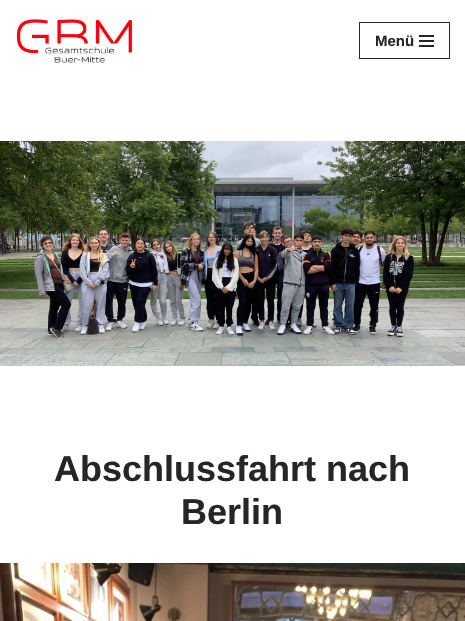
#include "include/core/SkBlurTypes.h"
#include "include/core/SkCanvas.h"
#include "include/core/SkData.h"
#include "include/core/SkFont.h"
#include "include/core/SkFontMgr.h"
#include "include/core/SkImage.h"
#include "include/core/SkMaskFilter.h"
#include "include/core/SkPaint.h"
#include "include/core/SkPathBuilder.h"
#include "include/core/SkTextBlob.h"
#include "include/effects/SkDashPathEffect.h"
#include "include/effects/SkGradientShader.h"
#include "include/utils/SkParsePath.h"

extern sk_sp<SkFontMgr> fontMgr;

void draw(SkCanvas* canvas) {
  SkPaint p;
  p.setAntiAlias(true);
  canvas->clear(SK_ColorWHITE);
  canvas->drawImageRect(SkImages::DeferredFromEncodedData(SkData::MakeFromFileName("images/1.png")), SkRect::MakeLTRB(17, 19, 132, 63), SkSamplingOptions());
  p.setStyle(SkPaint::kStroke_Style);
  p.setStrokeWidth(1);
  p.setColor(SkColorSetRGB(39, 38, 38));
  canvas->drawRect(SkRect::MakeLTRB(359.5f, 22.5f, 449.5f, 58.5f), p);
  p.setStyle(SkPaint::kFill_Style);
  canvas->drawRect(SkRect::MakeLTRB(419, 35, 434, 37), p);
  canvas->drawRect(SkRect::MakeLTRB(419, 40, 434, 42), p);
  canvas->drawRect(SkRect::MakeLTRB(419, 45, 434, 47), p);
  canvas->drawImageRect(SkImages::DeferredFromEncodedData(SkData::MakeFromFileName("images/2.png")), SkRect::MakeLTRB(0, 141, 465, 366), SkSamplingOptions());
  canvas->drawImageRect(SkImages::DeferredFromEncodedData(SkData::MakeFromFileName("images/3.png")), SkRect::MakeLTRB(0, 563, 465, 621), SkSamplingOptions());
  SkFont font1(fontMgr->matchFamilyStyle("Liberation Sans", SkFontStyle::Bold()), 15);
  font1.setSubpixel(true);
  canvas->drawString("Menü", 375, 46, font1, p);
  SkFont font2(fontMgr->matchFamilyStyle("Liberation Sans", SkFontStyle::Bold()), 36);
  font2.setSubpixel(true);
  canvas->drawString("Abschlussfahrt nach", 54, 481, font2, p);
  canvas->drawString("Berlin", 181, 524, font2, p);
}
